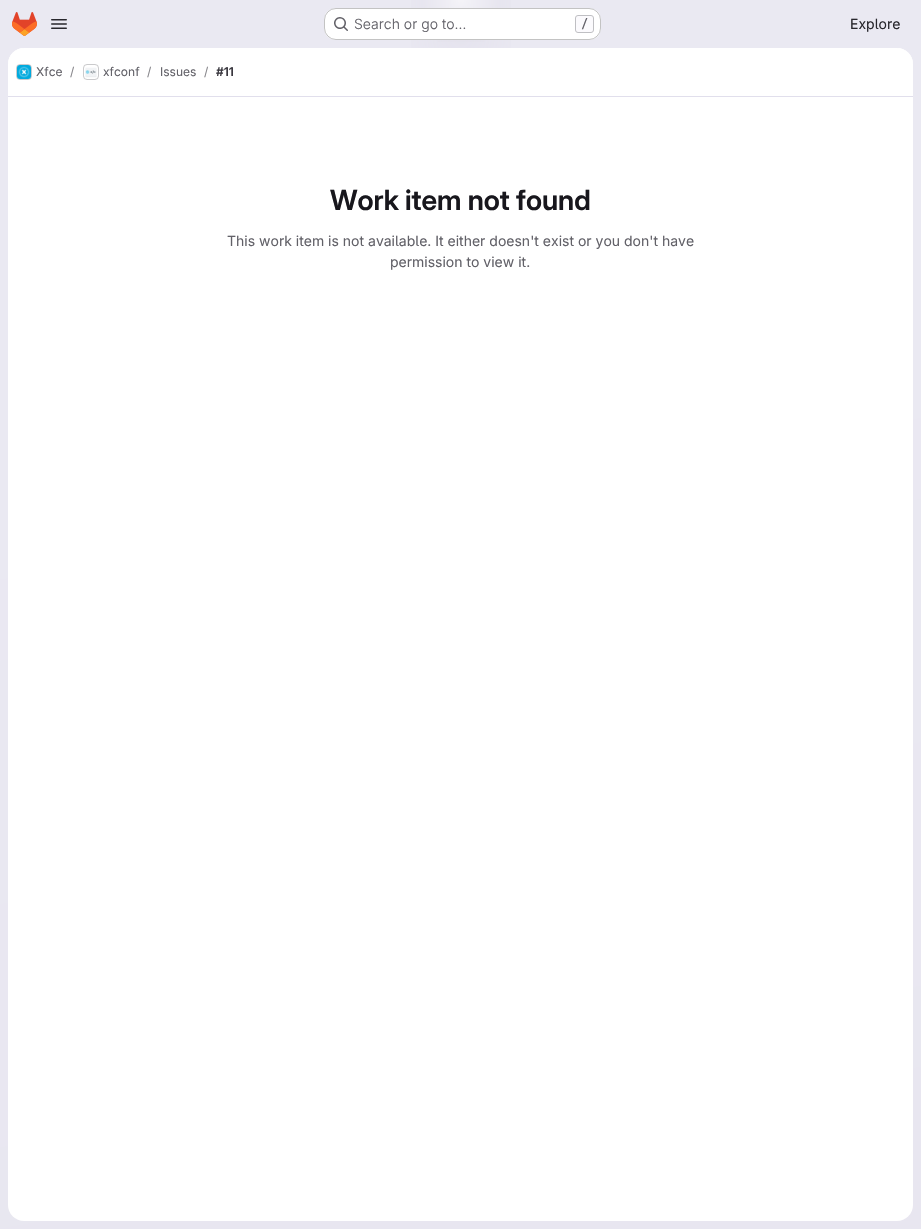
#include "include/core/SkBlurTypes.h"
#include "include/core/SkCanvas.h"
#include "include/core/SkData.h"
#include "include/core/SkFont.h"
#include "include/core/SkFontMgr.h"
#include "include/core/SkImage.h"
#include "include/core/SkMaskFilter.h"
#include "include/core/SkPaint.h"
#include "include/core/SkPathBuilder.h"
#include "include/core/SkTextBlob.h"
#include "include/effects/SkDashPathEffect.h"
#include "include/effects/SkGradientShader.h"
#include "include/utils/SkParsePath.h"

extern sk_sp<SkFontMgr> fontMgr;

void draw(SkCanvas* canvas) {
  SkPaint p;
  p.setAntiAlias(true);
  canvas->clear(SK_ColorWHITE);
  {
    const SkColor colors[] = {SkColorSetRGB(232, 230, 240), SkColorSetRGB(234, 233, 242)};
    const float stops[] = {0, 0.7f};
    const SkPoint ends[] = {{579, 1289}, {342, -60}};
    p.setShader(SkGradientShader::MakeLinear(ends, colors, stops, 2, SkTileMode::kClamp));
    p.setAlpha(255);
  }
  canvas->drawRect(SkRect::MakeLTRB(0, 0, 921, 1229), p);
  {
    const SkColor colors[] = {SkColorSetRGB(228, 226, 237), SkColorSetARGB(0, 228, 226, 237)};
    const float stops[] = {0, 0.15f};
    SkMatrix m = SkMatrix::Translate(461, 0).preScale(461, 1229);
    p.setShader(SkGradientShader::MakeRadial({0, 0}, 1, colors, stops, 2, SkTileMode::kClamp, 0, &m));
    p.setAlpha(255);
  }
  canvas->drawRect(SkRect::MakeLTRB(411, 0, 511, 48), p);
  {
    const SkColor colors[] = {SkColorSetRGB(228, 226, 236), SkColorSetARGB(0, 228, 226, 236)};
    const float stops[] = {0, 0.11f};
    SkMatrix m = SkMatrix::Translate(461, 0).preScale(461, 1229);
    p.setShader(SkGradientShader::MakeRadial({0, 0}, 1, colors, stops, 2, SkTileMode::kClamp, 0, &m));
    p.setAlpha(255);
  }
  canvas->drawRect(SkRect::MakeLTRB(437, 9, 485, 42), p);
  {
    const SkColor colors[] = {SkColorSetARGB(153, 255, 255, 255), SkColorSetARGB(0, 255, 255, 255)};
    const float stops[] = {0, 0.03f};
    p.setShader(SkGradientShader::MakeRadial({461, 0}, 1312, colors, stops, 2, SkTileMode::kClamp));
    p.setAlpha(255);
  }
  canvas->drawRect(SkRect::MakeLTRB(423, 0, 499, 8), p);
  canvas->drawImageRect(SkImages::DeferredFromEncodedData(SkData::MakeFromFileName("images/1.png")), SkRect::MakeLTRB(12, 12, 37, 36), SkSamplingOptions());
  canvas->drawImageRect(SkImages::DeferredFromEncodedData(SkData::MakeFromFileName("images/2.png")), SkRect::MakeLTRB(51, 19, 67, 29), SkSamplingOptions());
  p.setShader(nullptr);
  p.setColor(SK_ColorWHITE);
  canvas->drawRoundRect(SkRect::MakeLTRB(324, 8, 601, 40), 12, 12, p);
  p.setStyle(SkPaint::kStroke_Style);
  p.setStrokeWidth(1);
  p.setColor(SkColorSetARGB(61, 5, 5, 6));
  canvas->drawRoundRect(SkRect::MakeLTRB(324.5f, 8.5f, 600.5f, 39.5f), 11.5f, 11.5f, p);
  canvas->drawImageRect(SkImages::DeferredFromEncodedData(SkData::MakeFromFileName("images/3.png")), SkRect::MakeLTRB(334, 17, 348, 31), SkSamplingOptions());
  p.setStyle(SkPaint::kFill_Style);
  p.setColor(SkColorSetRGB(251, 250, 253));
  canvas->drawRoundRect(SkRect::MakeLTRB(575.5f, 15.5f, 593.5f, 32.5f), 2.5f, 2.5f, p);
  p.setStyle(SkPaint::kStroke_Style);
  p.setColor(SkColorSetRGB(191, 191, 195));
  canvas->drawRoundRect(SkRect::MakeLTRB(575.5f, 15.5f, 593.5f, 32.5f), 2.5f, 2.5f, p);
  p.setStyle(SkPaint::kFill_Style);
  p.setColor(SK_ColorWHITE);
  canvas->drawRoundRect(SkRect::MakeLTRB(8, 48, 913, 1221), 16, 16, p);
  canvas->drawPath(SkPathBuilder().moveTo(24, 48).lineTo(897, 48).cubicTo(906, 48, 913, 55, 913, 64).lineTo(913, 97).lineTo(8, 97).lineTo(8, 64).cubicTo(8, 55, 15, 48, 24, 48).close().detach(), p);
  p.setColor(SkColorSetRGB(225, 223, 236));
  canvas->drawRect(SkRect::MakeLTRB(8, 96, 913, 97), p);
  p.setStyle(SkPaint::kStroke_Style);
  p.setColor(SkColorSetRGB(220, 220, 222));
  canvas->drawRoundRect(SkRect::MakeLTRB(16.5f, 64.5f, 31.5f, 79.5f), 3.5f, 3.5f, p);
  canvas->drawImageRect(SkImages::DeferredFromEncodedData(SkData::MakeFromFileName("images/4.png")), SkRect::MakeLTRB(17, 65, 31, 79), SkSamplingOptions());
  p.setColor(SkColorSetARGB(20, 5, 5, 6));
  canvas->drawRoundRect(SkRect::MakeLTRB(16.5f, 64.5f, 31.5f, 79.5f), 3.5f, 3.5f, p);
  p.setColor(SkColorSetRGB(220, 220, 222));
  canvas->drawRoundRect(SkRect::MakeLTRB(83.5f, 64.5f, 98.5f, 79.5f), 3.5f, 3.5f, p);
  canvas->drawImageRect(SkImages::DeferredFromEncodedData(SkData::MakeFromFileName("images/5.png")), SkRect::MakeLTRB(85, 67, 97, 78), SkSamplingOptions());
  p.setColor(SkColorSetARGB(20, 5, 5, 6));
  canvas->drawRoundRect(SkRect::MakeLTRB(83.5f, 64.5f, 98.5f, 79.5f), 3.5f, 3.5f, p);
  SkFont font1(fontMgr->matchFamilyStyle("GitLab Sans", SkFontStyle(300, SkFontStyle::kNormal_Width, SkFontStyle::kUpright_Slant)), 14);
  font1.setSubpixel(true);
  p.setStyle(SkPaint::kFill_Style);
  p.setColor(SkColorSetRGB(98, 97, 104));
  canvas->drawString("Search or go to…", 354, 29, font1, p);
  SkFont font2(fontMgr->matchFamilyStyle("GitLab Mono", SkFontStyle(500, SkFontStyle::kNormal_Width, SkFontStyle::kUpright_Slant)), 12);
  font2.setSubpixel(true);
  canvas->drawString("/", 581, 28, font2, p);
  SkFont font3(fontMgr->matchFamilyStyle("GitLab Sans", SkFontStyle::Normal()), 14);
  font3.setSubpixel(true);
  p.setColor(SkColorSetRGB(40, 39, 45));
  canvas->drawString("Explore", 850, 29, font3, p);
  SkFont font4(fontMgr->matchFamilyStyle("GitLab Sans", SkFontStyle::Normal()), 12);
  font4.setSubpixel(true);
  p.setColor(SkColorSetRGB(98, 97, 104));
  canvas->drawString("Xfce", 36, 76, font4, p);
  p.setColor(SkColorSetRGB(137, 136, 141));
  canvas->drawString("/", 70, 76, font4, p);
  p.setColor(SkColorSetRGB(98, 97, 104));
  canvas->drawString("xfconf", 103, 76, font4, p);
  p.setColor(SkColorSetRGB(137, 136, 141));
  canvas->drawString("/", 147, 76, font4, p);
  p.setColor(SkColorSetRGB(98, 97, 104));
  canvas->drawString("Issues", 160, 76, font4, p);
  p.setColor(SkColorSetRGB(137, 136, 141));
  canvas->drawString("/", 204, 76, font4, p);
  SkFont font5(fontMgr->matchFamilyStyle("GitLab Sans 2", SkFontStyle(600, SkFontStyle::kNormal_Width, SkFontStyle::kUpright_Slant)), 12);
  font5.setSubpixel(true);
  p.setColor(SkColorSetRGB(58, 56, 63));
  canvas->drawString("#11", 216, 76, font5, p);
  SkFont font6(fontMgr->matchFamilyStyle("GitLab Sans", SkFontStyle(600, SkFontStyle::kNormal_Width, SkFontStyle::kUpright_Slant)), 28);
  font6.setSubpixel(true);
  p.setColor(SkColorSetRGB(24, 23, 29));
  canvas->drawString("Work item not found", 330, 210, font6, p);
  p.setColor(SkColorSetRGB(98, 97, 104));
  canvas->drawString("This work item is not available. It either doesn't exist or you don't have", 227, 246, font3, p);
  canvas->drawString("permission to view it.", 390, 267, font3, p);
}
